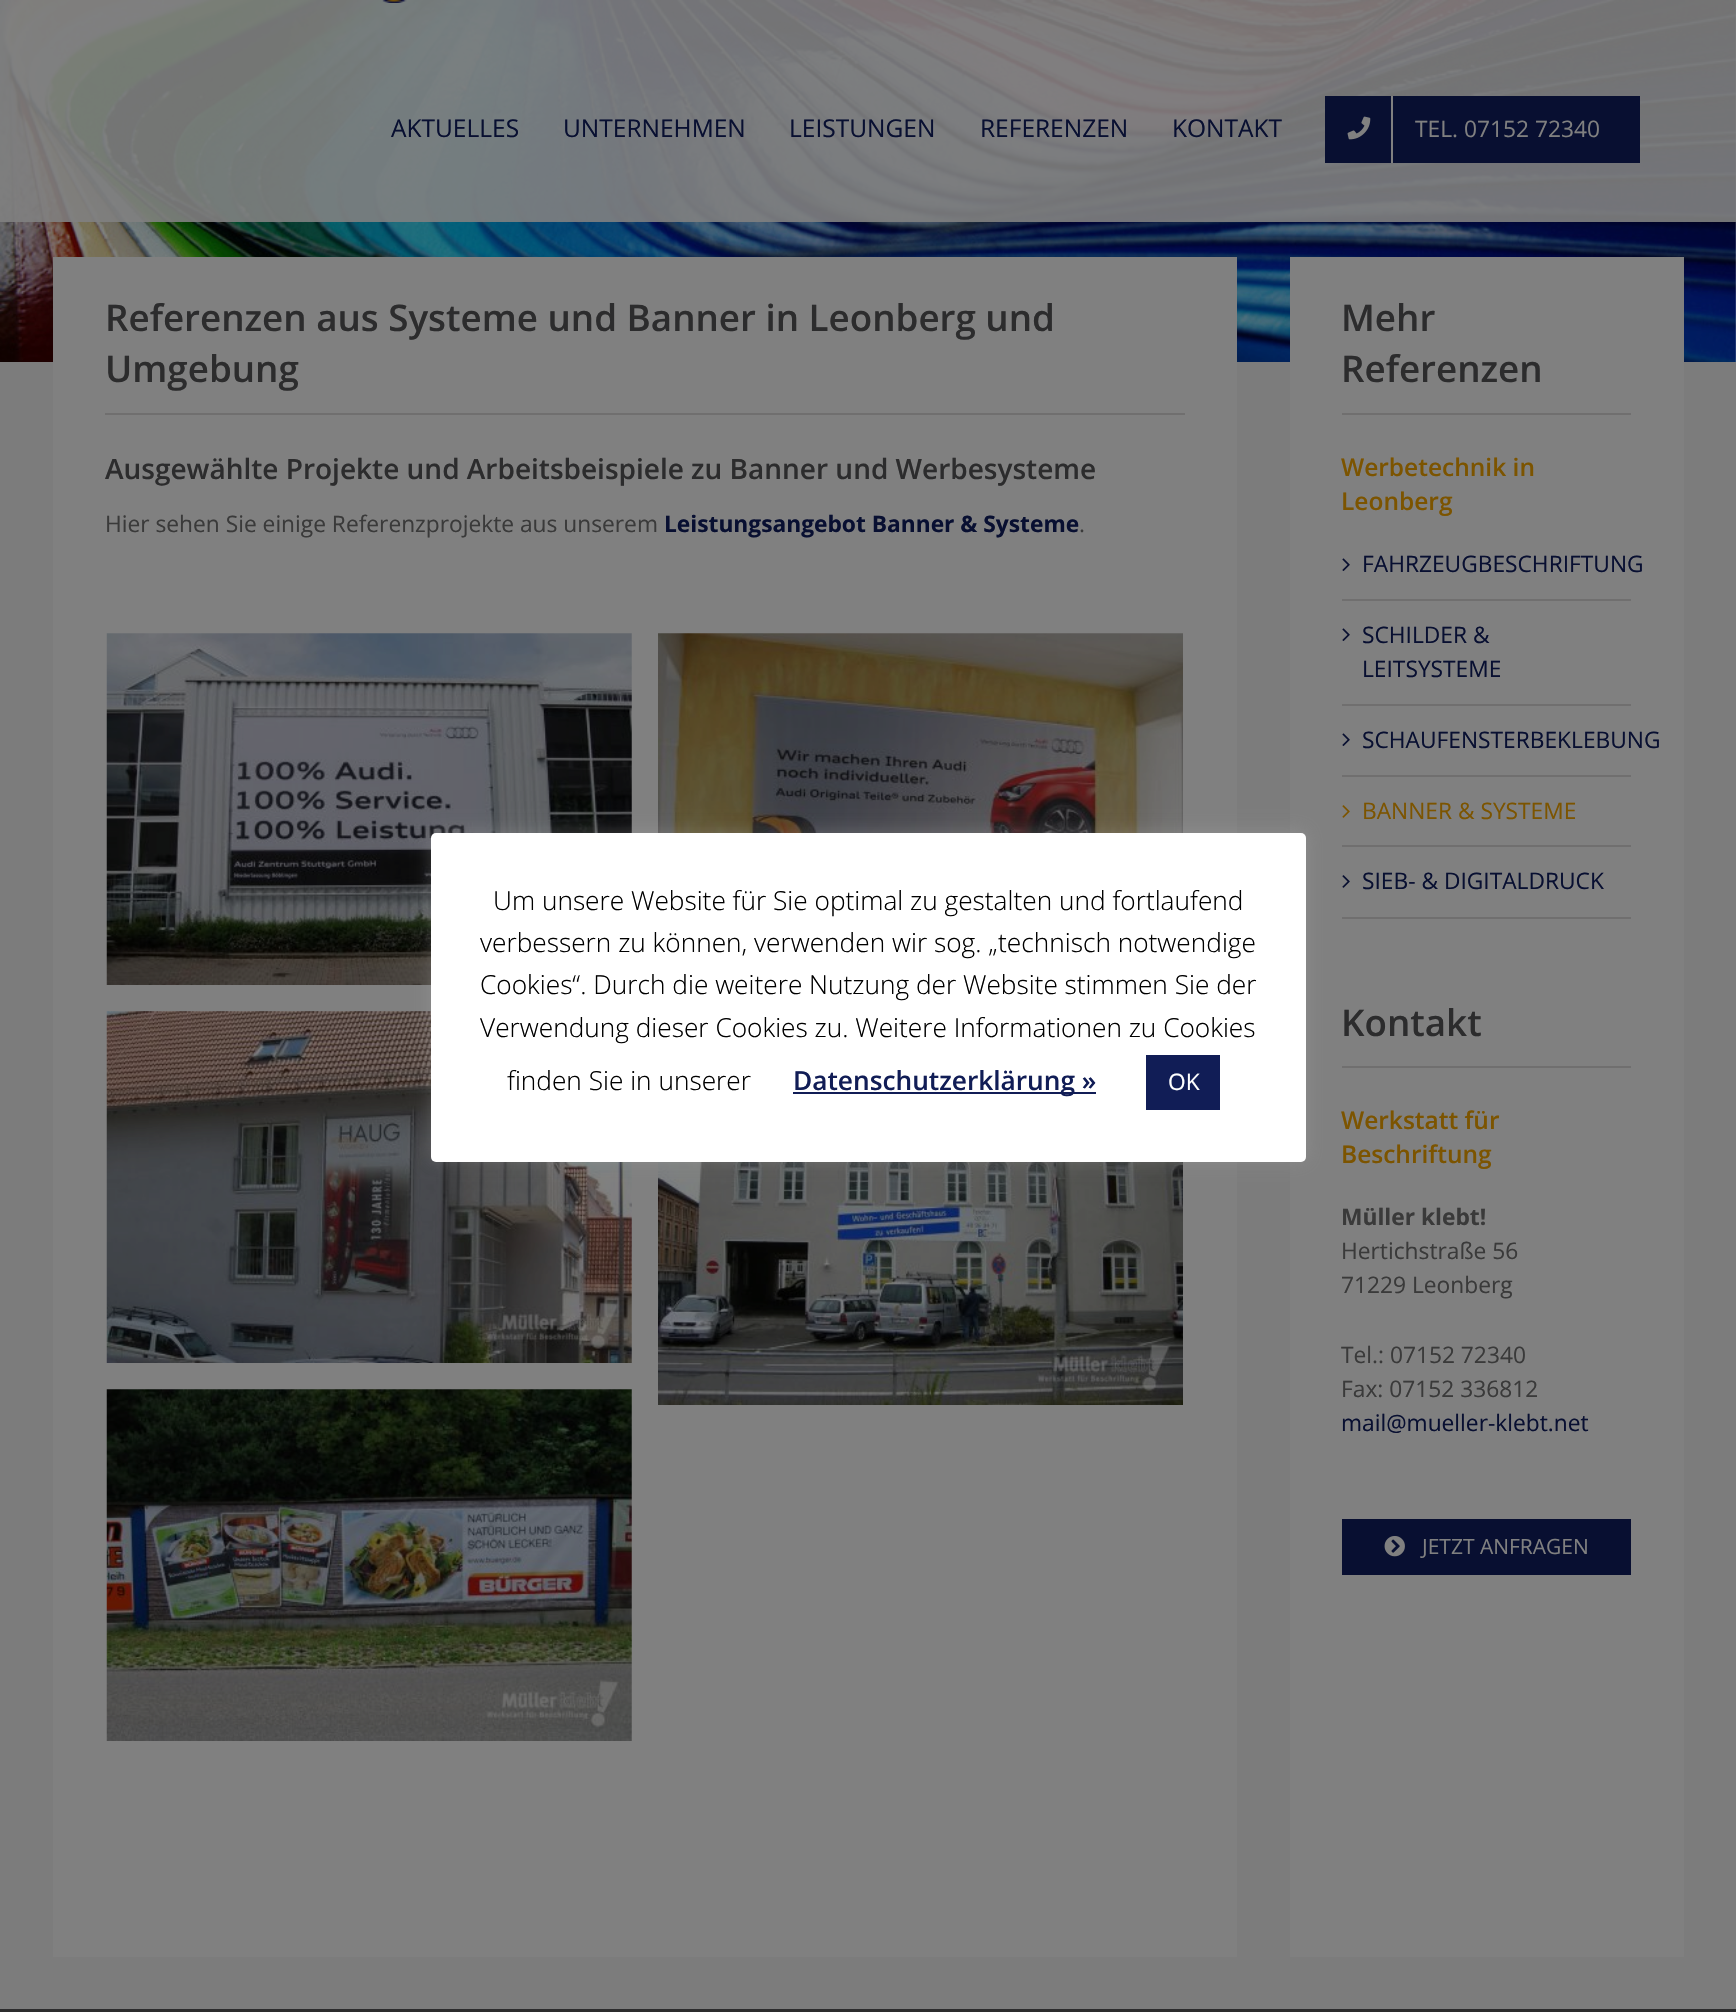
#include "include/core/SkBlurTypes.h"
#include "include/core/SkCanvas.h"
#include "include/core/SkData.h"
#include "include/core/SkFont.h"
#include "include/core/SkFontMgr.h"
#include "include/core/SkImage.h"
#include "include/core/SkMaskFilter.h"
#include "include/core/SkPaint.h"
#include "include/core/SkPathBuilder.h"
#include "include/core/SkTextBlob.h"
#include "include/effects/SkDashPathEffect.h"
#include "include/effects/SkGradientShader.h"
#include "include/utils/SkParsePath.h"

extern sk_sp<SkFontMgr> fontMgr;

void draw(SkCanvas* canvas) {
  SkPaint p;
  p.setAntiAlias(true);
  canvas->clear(SK_ColorWHITE);
  canvas->drawImageRect(SkImages::DeferredFromEncodedData(SkData::MakeFromFileName("images/1.png")), SkRect::MakeLTRB(0, 0, 1736, 362), SkSamplingOptions());
  p.setColor(SkColorSetARGB(230, 128, 128, 128));
  canvas->drawRect(SkRect::MakeLTRB(0, 0, 1736, 222), p);
  canvas->drawImageRect(SkImages::DeferredFromEncodedData(SkData::MakeFromFileName("images/2.png")), SkRect::MakeLTRB(382, 0, 407, 3), SkSamplingOptions());
  p.setColor(SkColorSetRGB(8, 15, 49));
  canvas->drawRect(SkRect::MakeLTRB(1325, 96, 1640, 163), p);
  p.setColor(SkColorSetRGB(128, 128, 128));
  canvas->drawRect(SkRect::MakeLTRB(1391, 96, 1393, 163), p);
  canvas->drawImageRect(SkImages::DeferredFromEncodedData(SkData::MakeFromFileName("images/3.png")), SkRect::MakeLTRB(1347, 116, 1371, 140), SkSamplingOptions());
  p.setColor(SkColorSetRGB(124, 124, 124));
  canvas->drawRect(SkRect::MakeLTRB(0, 362, 1736, 2009), p);
  p.setColor(SkColorSetRGB(128, 128, 128));
  canvas->drawRect(SkRect::MakeLTRB(53, 257, 1237, 1957), p);
  p.setColor(SkColorSetRGB(112, 111, 111));
  canvas->drawRect(SkRect::MakeLTRB(105, 413, 1185, 415), p);
  canvas->drawImageRect(SkImages::DeferredFromEncodedData(SkData::MakeFromFileName("images/4.png")), SkRect::MakeLTRB(106, 633, 632, 985), SkSamplingOptions());
  canvas->drawImageRect(SkImages::DeferredFromEncodedData(SkData::MakeFromFileName("images/5.png")), SkRect::MakeLTRB(658, 633, 1183, 833), SkSamplingOptions());
  canvas->drawImageRect(SkImages::DeferredFromEncodedData(SkData::MakeFromFileName("images/6.png")), SkRect::MakeLTRB(106, 1011, 632, 1363), SkSamplingOptions());
  canvas->drawImageRect(SkImages::DeferredFromEncodedData(SkData::MakeFromFileName("images/7.png")), SkRect::MakeLTRB(658, 1162, 1183, 1405), SkSamplingOptions());
  canvas->drawImageRect(SkImages::DeferredFromEncodedData(SkData::MakeFromFileName("images/8.png")), SkRect::MakeLTRB(106, 1389, 632, 1741), SkSamplingOptions());
  p.setColor(SkColorSetRGB(128, 128, 128));
  canvas->drawRect(SkRect::MakeLTRB(1290, 257, 1684, 1957), p);
  p.setColor(SkColorSetRGB(112, 111, 111));
  canvas->drawRect(SkRect::MakeLTRB(1342, 413, 1631, 415), p);
  canvas->drawRect(SkRect::MakeLTRB(1342, 599, 1631, 601), p);
  canvas->drawImageRect(SkImages::DeferredFromEncodedData(SkData::MakeFromFileName("images/9.png")), SkRect::MakeLTRB(1342, 558, 1350, 571), SkSamplingOptions());
  canvas->drawRect(SkRect::MakeLTRB(1342, 704, 1631, 706), p);
  canvas->drawImageRect(SkImages::DeferredFromEncodedData(SkData::MakeFromFileName("images/9.png")), SkRect::MakeLTRB(1342, 628, 1350, 641), SkSamplingOptions());
  canvas->drawRect(SkRect::MakeLTRB(1342, 775, 1631, 777), p);
  canvas->drawImageRect(SkImages::DeferredFromEncodedData(SkData::MakeFromFileName("images/9.png")), SkRect::MakeLTRB(1342, 733, 1350, 746), SkSamplingOptions());
  canvas->drawRect(SkRect::MakeLTRB(1342, 845, 1631, 847), p);
  canvas->drawImageRect(SkImages::DeferredFromEncodedData(SkData::MakeFromFileName("images/10.png")), SkRect::MakeLTRB(1342, 805, 1350, 818), SkSamplingOptions());
  canvas->drawRect(SkRect::MakeLTRB(1342, 917, 1631, 919), p);
  canvas->drawImageRect(SkImages::DeferredFromEncodedData(SkData::MakeFromFileName("images/11.png")), SkRect::MakeLTRB(1342, 875, 1350, 888), SkSamplingOptions());
  canvas->drawRect(SkRect::MakeLTRB(1342, 1066, 1631, 1068), p);
  p.setColor(SkColorSetRGB(8, 15, 49));
  canvas->drawRect(SkRect::MakeLTRB(1342, 1519, 1631, 1575), p);
  canvas->drawImageRect(SkImages::DeferredFromEncodedData(SkData::MakeFromFileName("images/12.png")), SkRect::MakeLTRB(1384, 1536, 1405, 1557), SkSamplingOptions());
  p.setColor(SkColorSetRGB(44, 44, 45));
  canvas->drawRect(SkRect::MakeLTRB(0, 2009, 1736, 2012), p);
  p.setColor(SkColorSetARGB(77, 172, 171, 171));
  p.setMaskFilter(SkMaskFilter::MakeBlur(kNormal_SkBlurStyle, 9));
  canvas->drawRoundRect(SkRect::MakeLTRB(431, 831, 1306, 1160), 5, 5, p);
  p.setMaskFilter(nullptr);
  p.setColor(SK_ColorWHITE);
  canvas->drawRoundRect(SkRect::MakeLTRB(431, 833, 1306, 1162), 5, 5, p);
  p.setColor(SkColorSetRGB(17, 29, 86));
  canvas->drawRect(SkRect::MakeLTRB(793, 1092, 1096, 1094), p);
  canvas->drawRect(SkRect::MakeLTRB(1146, 1055, 1220, 1110), p);
  SkFont font1(fontMgr->matchFamilyStyle("Open Sans", SkFontStyle::Normal()), 24.5f);
  font1.setSubpixel(true);
  p.setColor(SkColorSetRGB(8, 15, 49));
  canvas->drawString("AKTUELLES", 391, 137, font1, p);
  canvas->drawString("UNTERNEHMEN", 563, 137, font1, p);
  canvas->drawString("LEISTUNGEN", 789, 137, font1, p);
  canvas->drawString("REFERENZEN", 980, 137, font1, p);
  canvas->drawString("KONTAKT", 1172, 137, font1, p);
  SkFont font2(fontMgr->matchFamilyStyle("Open Sans", SkFontStyle::Normal()), 22.75f);
  font2.setSubpixel(true);
  p.setColor(SkColorSetRGB(128, 128, 128));
  canvas->drawString("TEL. 07152 72340", 1415, 137, font2, p);
  SkFont font3(fontMgr->matchFamilyStyle("Open Sans", SkFontStyle(600, SkFontStyle::kNormal_Width, SkFontStyle::kUpright_Slant)), 36.75f);
  font3.setSubpixel(true);
  p.setColor(SkColorSetRGB(44, 44, 45));
  canvas->drawString("Referenzen aus Systeme und Banner in Leonberg und", 105, 331, font3, p);
  canvas->drawString("Umgebung", 105, 382, font3, p);
  SkFont font4(fontMgr->matchFamilyStyle("Open Sans", SkFontStyle(600, SkFontStyle::kNormal_Width, SkFontStyle::kUpright_Slant)), 28);
  font4.setSubpixel(true);
  canvas->drawString("Ausgewählte Projekte und Arbeitsbeispiele zu Banner und Werbesysteme", 105, 479, font4, p);
  p.setColor(SkColorSetRGB(58, 58, 58));
  canvas->drawString("Hier sehen Sie einige Referenzprojekte aus unserem", 105, 532, font2, p);
  SkFont font5(fontMgr->matchFamilyStyle("Open Sans", SkFontStyle::Bold()), 22.75f);
  font5.setSubpixel(true);
  p.setColor(SkColorSetRGB(8, 15, 49));
  canvas->drawString("Leistungsangebot Banner & Systeme", 664, 532, font5, p);
  p.setColor(SkColorSetRGB(58, 58, 58));
  canvas->drawString(".", 1079, 532, font2, p);
  p.setColor(SkColorSetRGB(44, 44, 45));
  canvas->drawString("Mehr", 1341, 331, font3, p);
  canvas->drawString("Referenzen", 1341, 382, font3, p);
  SkFont font6(fontMgr->matchFamilyStyle("Open Sans", SkFontStyle(600, SkFontStyle::kNormal_Width, SkFontStyle::kUpright_Slant)), 24.5f);
  font6.setSubpixel(true);
  p.setColor(SkColorSetRGB(124, 84, 0));
  canvas->drawString("Werbetechnik in", 1341, 476, font6, p);
  canvas->drawString("Leonberg", 1341, 510, font6, p);
  p.setColor(SkColorSetRGB(8, 15, 49));
  canvas->drawString("FAHRZEUGBESCHRIFTUNG", 1362, 572, font2, p);
  canvas->drawString("SCHILDER &", 1362, 643, font2, p);
  canvas->drawString("LEITSYSTEME", 1362, 677, font2, p);
  canvas->drawString("SCHAUFENSTERBEKLEBUNG", 1362, 748, font2, p);
  p.setColor(SkColorSetRGB(124, 84, 0));
  canvas->drawString("BANNER & SYSTEME", 1362, 819, font2, p);
  p.setColor(SkColorSetRGB(8, 15, 49));
  canvas->drawString("SIEB- & DIGITALDRUCK", 1362, 889, font2, p);
  p.setColor(SkColorSetRGB(44, 44, 45));
  canvas->drawString("Kontakt", 1341, 1036, font3, p);
  p.setColor(SkColorSetRGB(124, 84, 0));
  canvas->drawString("Werkstatt für", 1341, 1129, font6, p);
  canvas->drawString("Beschriftung", 1341, 1163, font6, p);
  p.setColor(SkColorSetRGB(58, 58, 58));
  canvas->drawString("Müller klebt!", 1341, 1225, font5, p);
  canvas->drawString("Hertichstraße 56", 1341, 1259, font2, p);
  canvas->drawString("71229 Leonberg", 1341, 1293, font2, p);
  canvas->drawString("Tel.: 07152 72340", 1341, 1363, font2, p);
  canvas->drawString("Fax: 07152 336812", 1341, 1397, font2, p);
  p.setColor(SkColorSetRGB(8, 15, 49));
  canvas->drawString("mail@mueller-klebt.net", 1341, 1431, font2, p);
  SkFont font7(fontMgr->matchFamilyStyle("Open Sans", SkFontStyle::Normal()), 21);
  font7.setSubpixel(true);
  p.setColor(SkColorSetRGB(128, 128, 128));
  canvas->drawString("JETZT ANFRAGEN", 1422, 1554, font7, p);
  SkFont font8(fontMgr->matchFamilyStyle("Open Sans", SkFontStyle(300, SkFontStyle::kNormal_Width, SkFontStyle::kUpright_Slant)), 26.25f);
  font8.setSubpixel(true);
  p.setColor(SK_ColorBLACK);
  canvas->drawString("Um unsere Website für Sie optimal zu gestalten und fortlaufend", 493, 910, font8, p);
  canvas->drawString("verbessern zu können, verwenden wir sog. „technisch notwendige", 480, 952, font8, p);
  canvas->drawString("Cookies“. Durch die weitere Nutzung der Website stimmen Sie der", 480, 994, font8, p);
  canvas->drawString("Verwendung dieser Cookies zu. Weitere Informationen zu Cookies", 480, 1037, font8, p);
  canvas->drawString("finden Sie in unserer", 507, 1090, font8, p);
  SkFont font9(fontMgr->matchFamilyStyle("Open Sans", SkFontStyle(600, SkFontStyle::kNormal_Width, SkFontStyle::kUpright_Slant)), 26.25f);
  font9.setSubpixel(true);
  p.setColor(SkColorSetRGB(17, 29, 86));
  canvas->drawString("Datenschutzerklärung »", 793, 1090, font9, p);
  p.setColor(SK_ColorWHITE);
  canvas->drawString("OK", 1168, 1090, font2, p);
}
